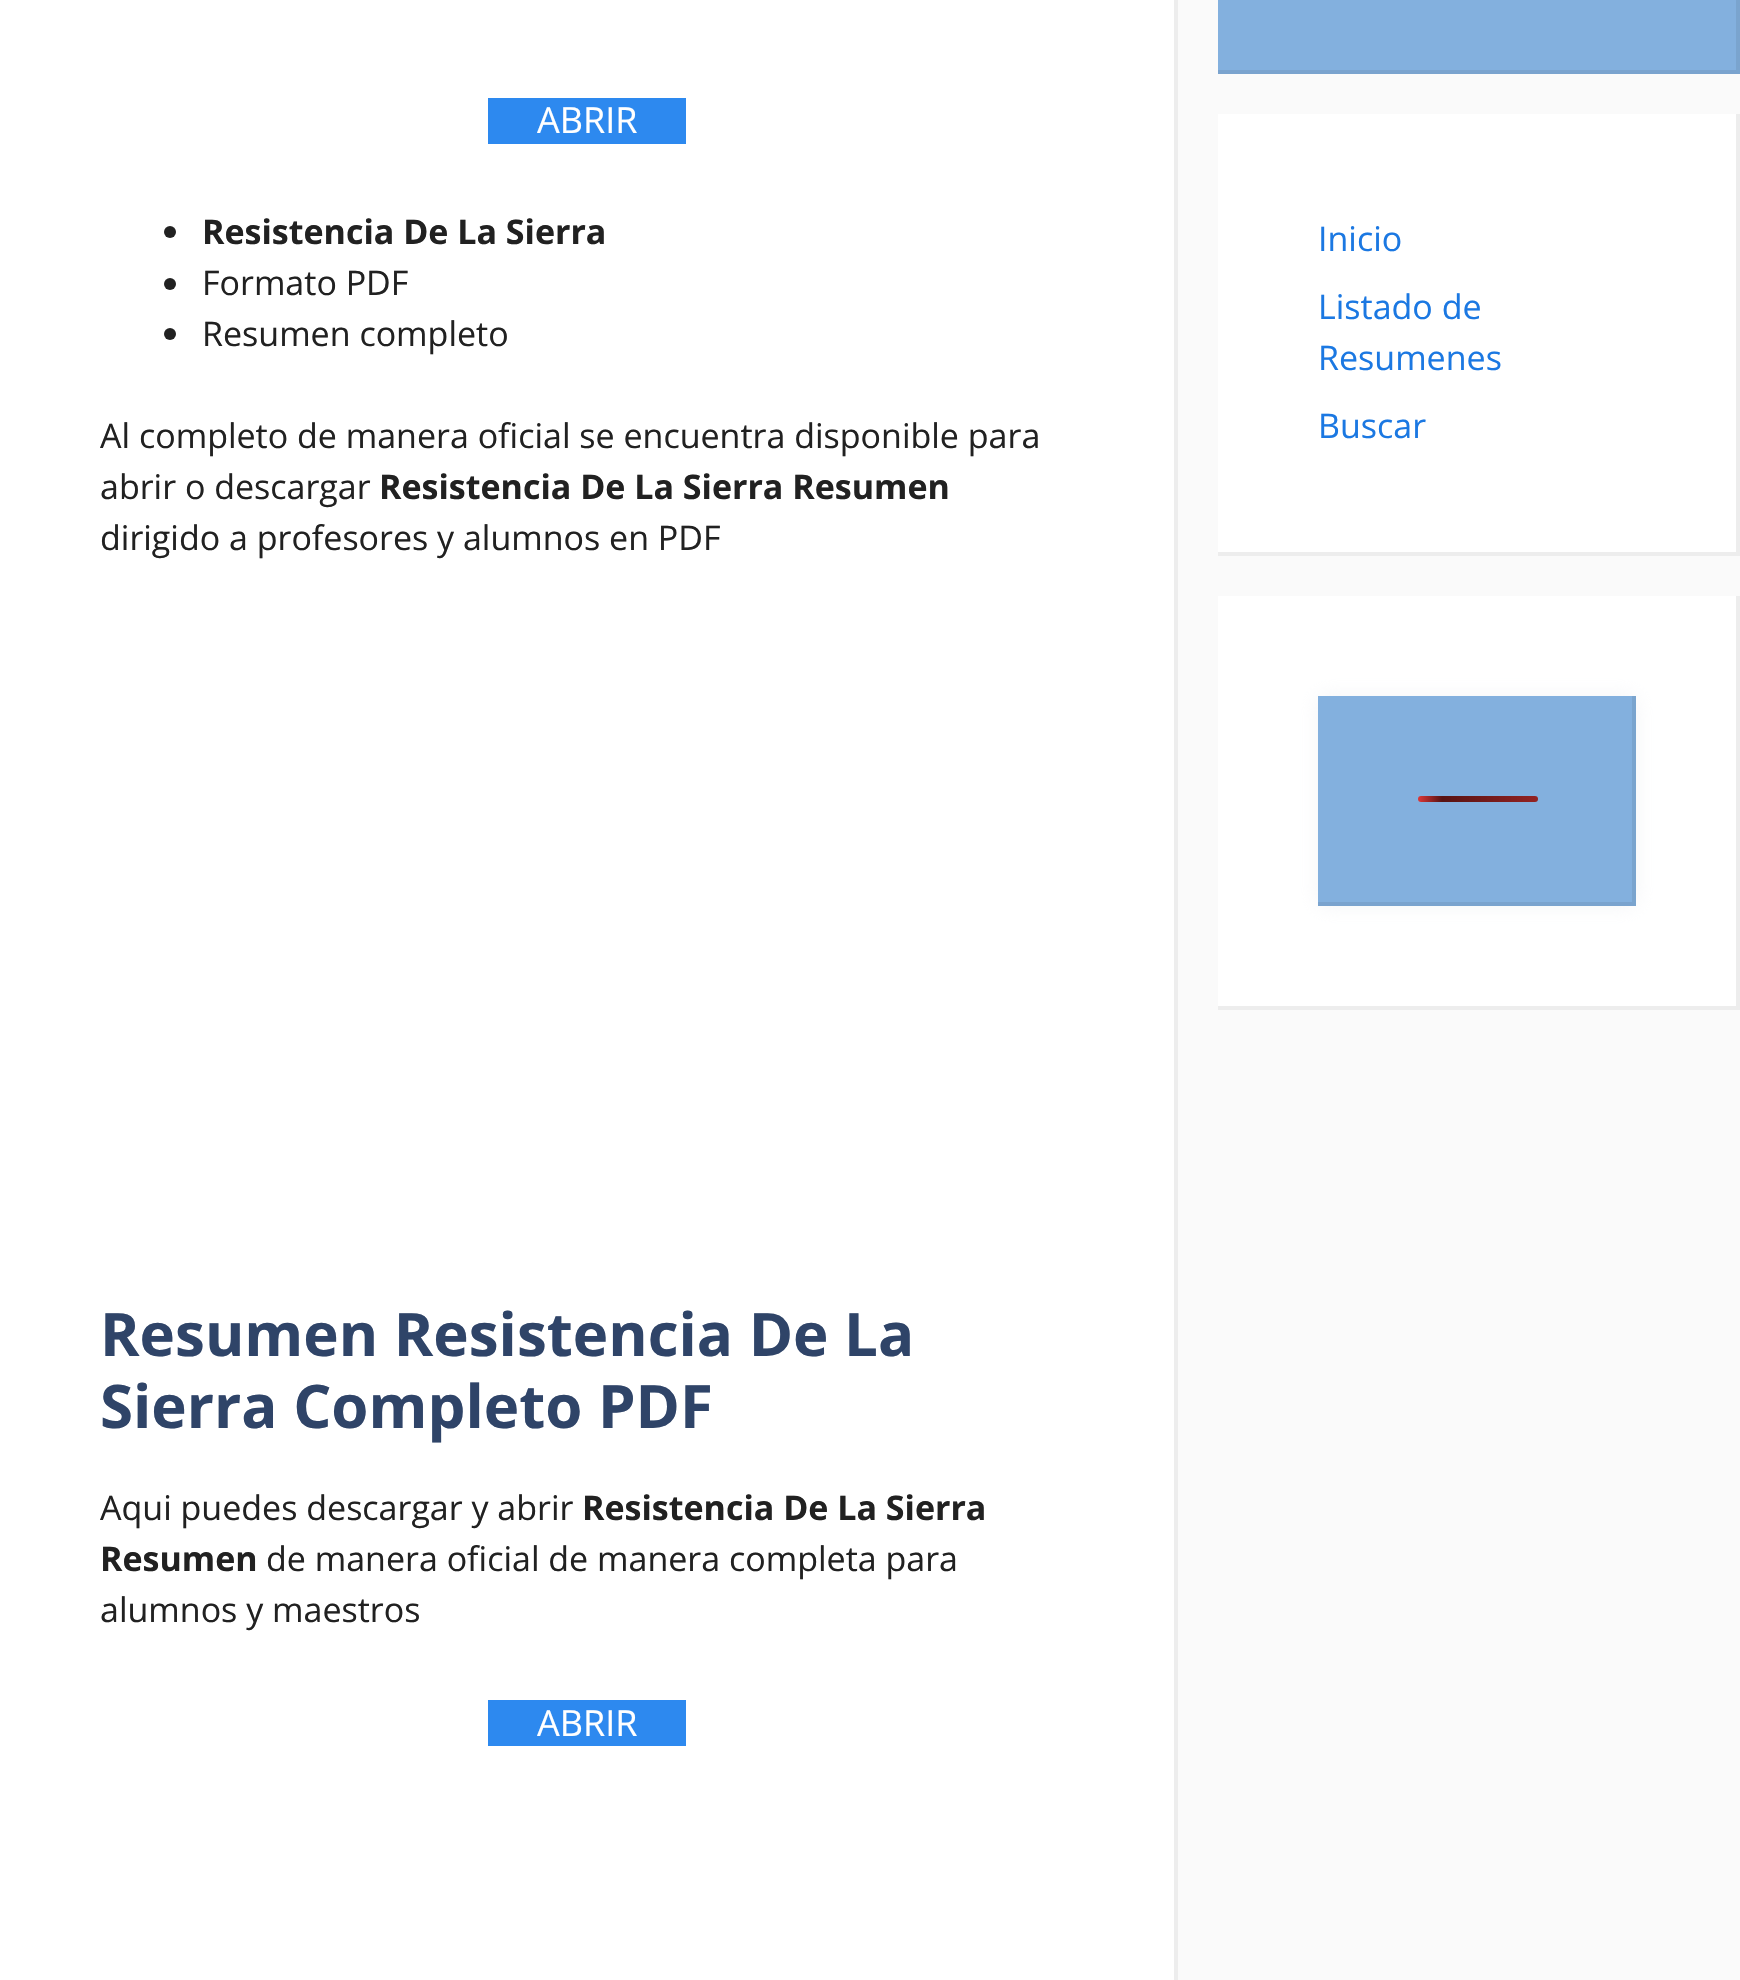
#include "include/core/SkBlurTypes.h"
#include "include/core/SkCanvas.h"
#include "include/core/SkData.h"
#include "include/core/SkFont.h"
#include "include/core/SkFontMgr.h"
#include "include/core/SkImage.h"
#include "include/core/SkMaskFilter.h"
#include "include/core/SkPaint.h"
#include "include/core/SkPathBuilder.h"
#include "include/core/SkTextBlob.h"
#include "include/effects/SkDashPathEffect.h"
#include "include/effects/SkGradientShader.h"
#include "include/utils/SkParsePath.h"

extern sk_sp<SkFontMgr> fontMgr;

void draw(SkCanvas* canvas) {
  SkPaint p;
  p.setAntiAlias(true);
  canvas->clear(SkColorSetRGB(250, 250, 250));
  p.setColor(SK_ColorWHITE);
  canvas->drawRect(SkRect::MakeLTRB(0, 0, 1174, 1980), p);
  p.setColor(SkColorSetRGB(237, 237, 237));
  canvas->drawPath(SkPathBuilder().moveTo(1178, -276).lineTo(1178, 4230).lineTo(1174, 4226).lineTo(1174, -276).close().detach(), p);
  p.setColor(SkColorSetRGB(45, 137, 239));
  canvas->drawRect(SkRect::MakeLTRB(488, 98, 686, 144), p);
  p.setColor(SkColorSetRGB(33, 33, 33));
  canvas->drawCircle(170, 232, 6, p);
  canvas->drawCircle(170, 284, 6, p);
  canvas->drawCircle(170, 334, 6, p);
  p.setColor(SkColorSetRGB(45, 137, 239));
  canvas->drawRect(SkRect::MakeLTRB(488, 1700, 686, 1746), p);
  p.setColor(SkColorSetRGB(131, 176, 222));
  canvas->drawRect(SkRect::MakeLTRB(1218, 0, 1740, 74), p);
  p.setColor(SkColorSetRGB(122, 164, 206));
  canvas->drawPath(SkPathBuilder().moveTo(1740, -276).lineTo(1740, 74).lineTo(1736, 70).lineTo(1736, -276).close().detach(), p);
  p.setColor(SkColorSetARGB(18, 0, 0, 0));
  canvas->drawPath(SkPathBuilder().moveTo(1740, 74).lineTo(1218, 74).lineTo(1218, 70).lineTo(1736, 70).close().detach(), p);
  p.setColor(SK_ColorWHITE);
  canvas->drawRect(SkRect::MakeLTRB(1218, 114, 1740, 556), p);
  p.setColor(SkColorSetRGB(237, 237, 237));
  canvas->drawPath(SkPathBuilder().moveTo(1740, 114).lineTo(1740, 556).lineTo(1736, 552).lineTo(1736, 114).close().detach(), p);
  p.setColor(SkColorSetARGB(18, 0, 0, 0));
  canvas->drawPath(SkPathBuilder().moveTo(1740, 556).lineTo(1218, 556).lineTo(1218, 552).lineTo(1736, 552).close().detach(), p);
  p.setColor(SK_ColorWHITE);
  canvas->drawRect(SkRect::MakeLTRB(1218, 596, 1740, 1010), p);
  p.setColor(SkColorSetRGB(237, 237, 237));
  canvas->drawPath(SkPathBuilder().moveTo(1740, 596).lineTo(1740, 1010).lineTo(1736, 1006).lineTo(1736, 596).close().detach(), p);
  p.setColor(SkColorSetARGB(18, 0, 0, 0));
  canvas->drawPath(SkPathBuilder().moveTo(1740, 1010).lineTo(1218, 1010).lineTo(1218, 1006).lineTo(1736, 1006).close().detach(), p);
  p.setColor(SkColorSetARGB(128, 232, 234, 237));
  p.setMaskFilter(SkMaskFilter::MakeBlur(kNormal_SkBlurStyle, 10));
  canvas->drawRect(SkRect::MakeLTRB(1318, 696, 1636, 906), p);
  p.setMaskFilter(nullptr);
  p.setColor(SkColorSetRGB(131, 176, 222));
  canvas->drawRect(SkRect::MakeLTRB(1318, 696, 1636, 906), p);
  p.setColor(SkColorSetRGB(122, 164, 206));
  canvas->drawPath(SkPathBuilder().moveTo(1636, 696).lineTo(1636, 906).lineTo(1632, 902).lineTo(1632, 696).close().detach(), p);
  p.setColor(SkColorSetARGB(18, 0, 0, 0));
  canvas->drawPath(SkPathBuilder().moveTo(1636, 906).lineTo(1318, 906).lineTo(1318, 902).lineTo(1632, 902).close().detach(), p);
  {
    const SkColor colors[] = {SkColorSetRGB(221, 55, 55), SkColorSetRGB(87, 19, 19), SkColorSetRGB(221, 55, 55)};
    const float stops[] = {0, 0.1f, 1};
    const SkPoint ends[] = {{1418, 799}, {1658, 799}};
    p.setShader(SkGradientShader::MakeLinear(ends, colors, stops, 3, SkTileMode::kClamp));
    p.setAlpha(255);
  }
  canvas->drawRoundRect(SkRect::MakeLTRB(1418, 796, 1538, 802), 3, 3, p);
  SkFont font1(fontMgr->matchFamilyStyle("Open Sans", SkFontStyle::Normal()), 36);
  font1.setSubpixel(true);
  p.setShader(nullptr);
  p.setColor(SK_ColorWHITE);
  canvas->drawString("ABRIR", 537, 133, font1, p);
  SkFont font2(fontMgr->matchFamilyStyle("Open Sans", SkFontStyle::Bold()), 34);
  font2.setSubpixel(true);
  p.setColor(SkColorSetRGB(33, 33, 33));
  canvas->drawString("Resistencia De La Sierra", 202, 244, font2, p);
  SkFont font3(fontMgr->matchFamilyStyle("Open Sans", SkFontStyle::Normal()), 34);
  font3.setSubpixel(true);
  canvas->drawString("Formato PDF", 202, 295, font3, p);
  canvas->drawString("Resumen completo", 202, 346, font3, p);
  canvas->drawString("Al completo de manera oficial se encuentra disponible para", 100, 448, font3, p);
  canvas->drawString("abrir o descargar", 100, 499, font3, p);
  canvas->drawString("Resistencia De La Sierra Resumen", 379, 499, font2, p);
  canvas->drawString("dirigido a profesores y alumnos en PDF", 100, 550, font3, p);
  SkFont font4(fontMgr->matchFamilyStyle("Open Sans", SkFontStyle::Bold()), 60);
  font4.setSubpixel(true);
  p.setColor(SkColorSetRGB(47, 68, 104));
  canvas->drawString("Resumen Resistencia De La", 100, 1356, font4, p);
  canvas->drawString("Sierra Completo PDF", 100, 1428, font4, p);
  p.setColor(SkColorSetRGB(33, 33, 33));
  canvas->drawString("Aqui puedes descargar y abrir", 100, 1520, font3, p);
  canvas->drawString("Resistencia De La Sierra", 582, 1520, font2, p);
  canvas->drawString("Resumen", 100, 1571, font2, p);
  canvas->drawString("de manera oficial de manera completa para", 266, 1571, font3, p);
  canvas->drawString("alumnos y maestros", 100, 1622, font3, p);
  p.setColor(SK_ColorWHITE);
  canvas->drawString("ABRIR", 537, 1736, font1, p);
  p.setColor(SkColorSetRGB(27, 120, 226));
  canvas->drawString("Inicio", 1318, 251, font3, p);
  canvas->drawString("Listado de", 1318, 319, font3, p);
  canvas->drawString("Resumenes", 1318, 370, font3, p);
  canvas->drawString("Buscar", 1318, 438, font3, p);
}
